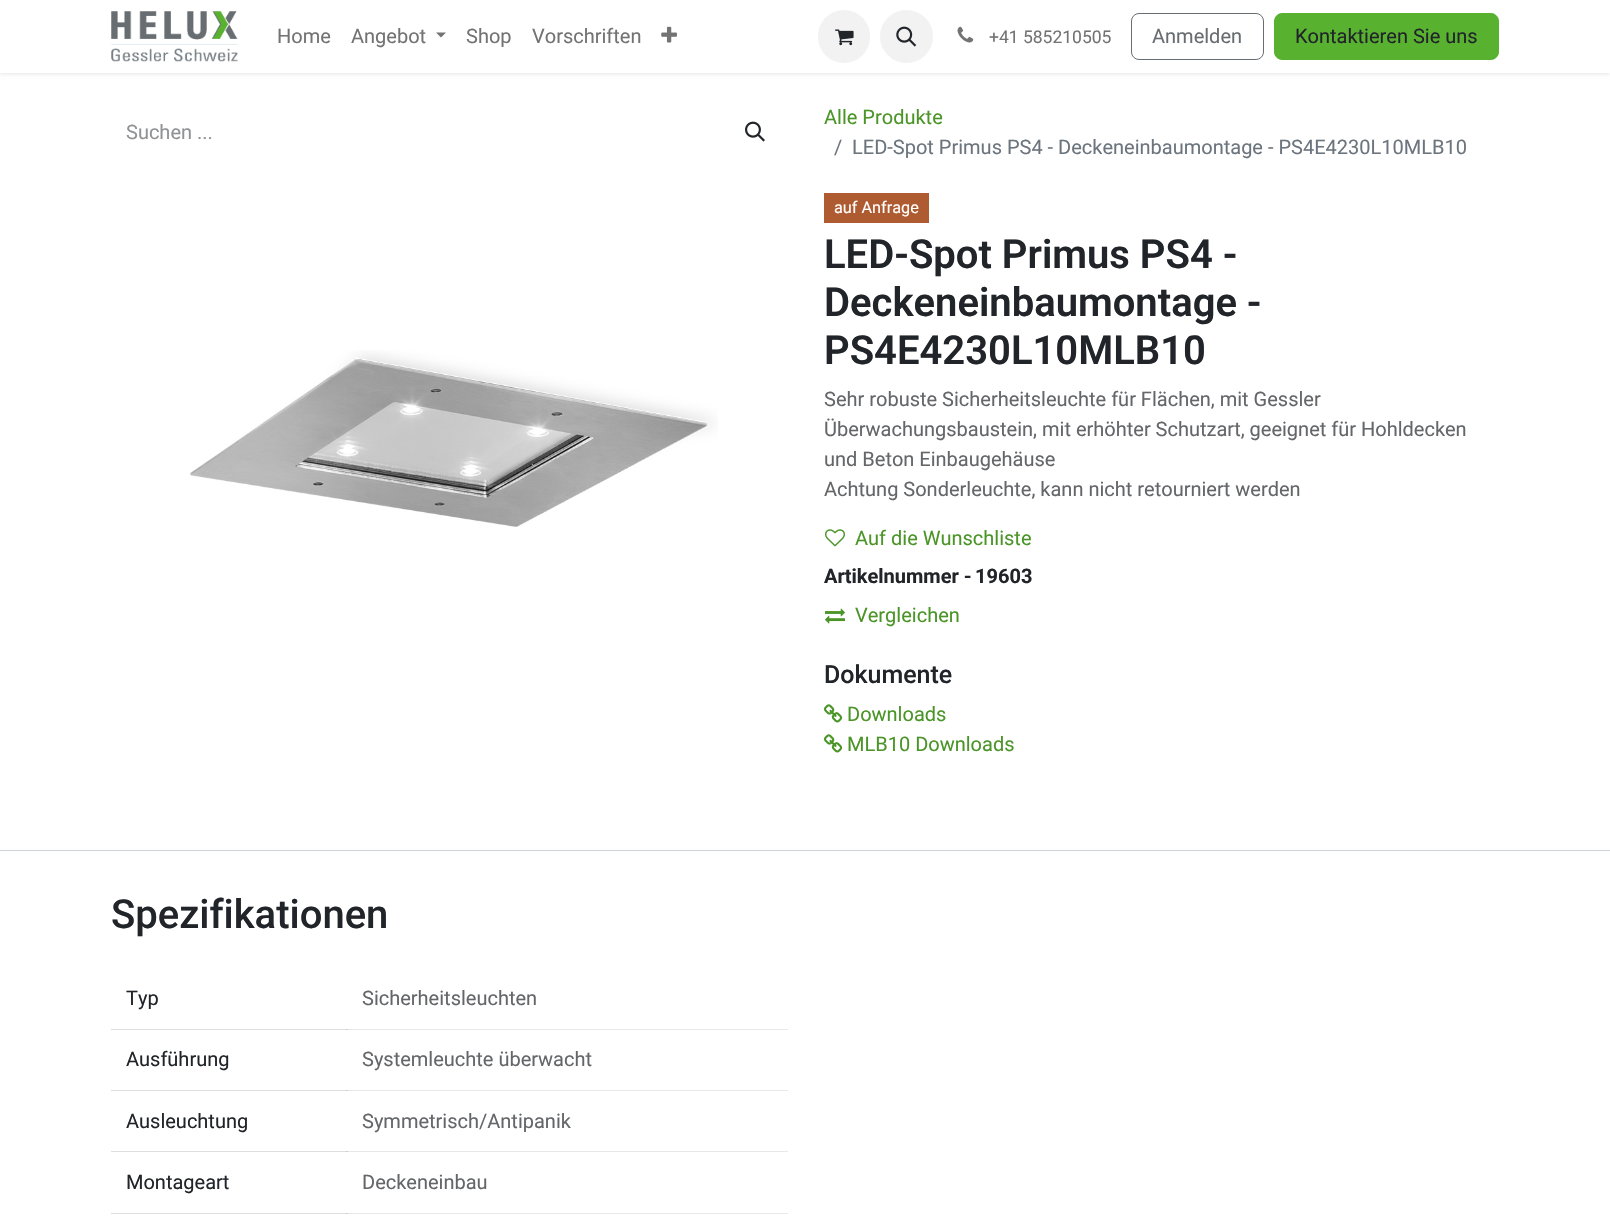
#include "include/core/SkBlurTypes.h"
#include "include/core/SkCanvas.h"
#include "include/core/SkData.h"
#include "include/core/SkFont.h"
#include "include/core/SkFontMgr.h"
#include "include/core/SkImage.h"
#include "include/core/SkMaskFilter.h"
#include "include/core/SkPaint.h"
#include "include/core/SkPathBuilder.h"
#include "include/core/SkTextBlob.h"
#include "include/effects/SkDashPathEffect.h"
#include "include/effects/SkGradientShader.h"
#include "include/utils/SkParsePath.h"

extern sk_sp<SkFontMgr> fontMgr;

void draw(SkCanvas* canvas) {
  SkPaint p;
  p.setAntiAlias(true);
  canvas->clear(SK_ColorWHITE);
  p.setColor(SkColorSetRGB(222, 222, 223));
  canvas->drawRect(SkRect::MakeLTRB(111, 1029, 348, 1030), p);
  canvas->drawRect(SkRect::MakeLTRB(111, 1090, 348, 1091), p);
  canvas->drawRect(SkRect::MakeLTRB(111, 1151, 348, 1152), p);
  canvas->drawRect(SkRect::MakeLTRB(111, 1213, 348, 1214), p);
  p.setColor(SkColorSetARGB(26, 0, 0, 0));
  p.setMaskFilter(SkMaskFilter::MakeBlur(kNormal_SkBlurStyle, 2));
  canvas->drawRect(SkRect::MakeLTRB(0, 1, 1610, 74), p);
  p.setMaskFilter(nullptr);
  p.setColor(SK_ColorWHITE);
  canvas->drawRect(SkRect::MakeLTRB(0, 0, 1610, 73), p);
  canvas->drawImageRect(SkImages::DeferredFromEncodedData(SkData::MakeFromFileName("images/1.png")), SkRect::MakeLTRB(111, 11, 238, 62), SkSamplingOptions());
  p.setColor(SkColorSetRGB(115, 115, 115));
  canvas->drawPath(SkPathBuilder().moveTo(436, 32.5f).lineTo(446, 32.5f).lineTo(441, 37.5f).close().detach(), p);
  canvas->drawImageRect(SkImages::DeferredFromEncodedData(SkData::MakeFromFileName("images/2.png")), SkRect::MakeLTRB(661, 26, 677, 43), SkSamplingOptions());
  p.setColor(SkColorSetRGB(242, 242, 242));
  canvas->drawRoundRect(SkRect::MakeLTRB(818, 10, 870, 63), 26, 26, p);
  canvas->drawImageRect(SkImages::DeferredFromEncodedData(SkData::MakeFromFileName("images/3.png")), SkRect::MakeLTRB(835, 29, 854, 46), SkSamplingOptions());
  canvas->drawCircle(906.5f, 36.5f, 26.5f, p);
  canvas->drawImageRect(SkImages::DeferredFromEncodedData(SkData::MakeFromFileName("images/4.png")), SkRect::MakeLTRB(896, 26, 917, 47), SkSamplingOptions());
  canvas->drawImageRect(SkImages::DeferredFromEncodedData(SkData::MakeFromFileName("images/5.png")), SkRect::MakeLTRB(957, 26, 974, 43), SkSamplingOptions());
  p.setStyle(SkPaint::kStroke_Style);
  p.setStrokeWidth(1);
  p.setColor(SkColorSetRGB(103, 109, 113));
  canvas->drawRoundRect(SkRect::MakeLTRB(1131.5f, 13.5f, 1263.5f, 59.5f), 7.5f, 7.5f, p);
  p.setStyle(SkPaint::kFill_Style);
  p.setColor(SkColorSetRGB(89, 177, 48));
  canvas->drawRoundRect(SkRect::MakeLTRB(1274.5f, 13.5f, 1498.5f, 59.5f), 7.5f, 7.5f, p);
  p.setStyle(SkPaint::kStroke_Style);
  canvas->drawRoundRect(SkRect::MakeLTRB(1274.5f, 13.5f, 1498.5f, 59.5f), 7.5f, 7.5f, p);
  canvas->drawImageRect(SkImages::DeferredFromEncodedData(SkData::MakeFromFileName("images/6.png")), SkRect::MakeLTRB(745, 121, 765, 142), SkSamplingOptions());
  canvas->drawImageRect(SkImages::DeferredFromEncodedData(SkData::MakeFromFileName("images/7.png")), SkRect::MakeLTRB(190, 350, 718, 527), SkSamplingOptions());
  p.setStyle(SkPaint::kFill_Style);
  p.setColor(SkColorSetRGB(175, 91, 49));
  canvas->drawRect(SkRect::MakeLTRB(824, 193, 929, 223), p);
  canvas->drawImageRect(SkImages::DeferredFromEncodedData(SkData::MakeFromFileName("images/8.png")), SkRect::MakeLTRB(825, 529, 845, 547), SkSamplingOptions());
  canvas->drawImageRect(SkImages::DeferredFromEncodedData(SkData::MakeFromFileName("images/9.png")), SkRect::MakeLTRB(825, 608, 845, 624), SkSamplingOptions());
  canvas->drawImageRect(SkImages::DeferredFromEncodedData(SkData::MakeFromFileName("images/10.png")), SkRect::MakeLTRB(824, 704, 843, 723), SkSamplingOptions());
  canvas->drawImageRect(SkImages::DeferredFromEncodedData(SkData::MakeFromFileName("images/10.png")), SkRect::MakeLTRB(824, 734, 843, 753), SkSamplingOptions());
  p.setColor(SkColorSetRGB(206, 212, 218));
  canvas->drawRect(SkRect::MakeLTRB(0, 850, 1610, 851), p);
  p.setColor(SkColorSetRGB(232, 232, 232));
  canvas->drawRect(SkRect::MakeLTRB(346, 1029, 788, 1030), p);
  p.setColor(SkColorSetRGB(202, 203, 203));
  canvas->drawRect(SkRect::MakeLTRB(346, 1029, 348, 1030), p);
  p.setColor(SkColorSetRGB(232, 232, 232));
  canvas->drawRect(SkRect::MakeLTRB(346, 1090, 788, 1091), p);
  p.setColor(SkColorSetRGB(202, 203, 203));
  canvas->drawRect(SkRect::MakeLTRB(346, 1090, 348, 1091), p);
  p.setColor(SkColorSetRGB(232, 232, 232));
  canvas->drawRect(SkRect::MakeLTRB(346, 1151, 788, 1152), p);
  p.setColor(SkColorSetRGB(202, 203, 203));
  canvas->drawRect(SkRect::MakeLTRB(346, 1151, 348, 1152), p);
  p.setColor(SkColorSetRGB(232, 232, 232));
  canvas->drawRect(SkRect::MakeLTRB(346, 1213, 788, 1214), p);
  p.setColor(SkColorSetRGB(202, 203, 203));
  canvas->drawRect(SkRect::MakeLTRB(346, 1213, 348, 1214), p);
  SkFont font1(fontMgr->matchFamilyStyle("Roboto", SkFontStyle::Normal()), 20);
  font1.setSubpixel(true);
  p.setColor(SkColorSetRGB(115, 115, 115));
  canvas->drawString("Home", 277, 43, font1, p);
  canvas->drawString("Angebot", 351, 43, font1, p);
  canvas->drawString("Shop", 466, 43, font1, p);
  canvas->drawString("Vorschriften", 532, 43, font1, p);
  SkFont font2(fontMgr->matchFamilyStyle("Roboto", SkFontStyle::Normal()), 17.5f);
  font2.setSubpixel(true);
  canvas->drawString("+41 585210505", 989, 43, font2, p);
  p.setColor(SkColorSetRGB(103, 109, 113));
  canvas->drawString("Anmelden", 1152, 43, font1, p);
  p.setColor(SkColorSetRGB(33, 37, 41));
  canvas->drawString("Kontaktieren Sie uns", 1295, 43, font1, p);
  p.setColor(SkColorSetRGB(144, 146, 148));
  canvas->drawString("Suchen ...", 126, 139, font1, p);
  p.setColor(SkColorSetRGB(75, 149, 40));
  canvas->drawString("Alle Produkte", 824, 124, font1, p);
  p.setColor(SkColorSetRGB(108, 117, 125));
  canvas->drawString("/", 834, 154, font1, p);
  canvas->drawString("LED-Spot Primus PS4 - Deckeneinbaumontage - PS4E4230L10MLB10", 852, 154, font1, p);
  SkFont font3(fontMgr->matchFamilyStyle("Roboto", SkFontStyle::Normal()), 16.25f);
  font3.setSubpixel(true);
  p.setColor(SK_ColorWHITE);
  canvas->drawString("auf Anfrage", 834, 213, font3, p);
  SkFont font4(fontMgr->matchFamilyStyle("Roboto", SkFontStyle(600, SkFontStyle::kNormal_Width, SkFontStyle::kUpright_Slant)), 40);
  font4.setSubpixel(true);
  p.setColor(SkColorSetRGB(33, 37, 41));
  canvas->drawString("LED-Spot Primus PS4 -", 824, 268, font4, p);
  canvas->drawString("Deckeneinbaumontage -", 824, 316, font4, p);
  canvas->drawString("PS4E4230L10MLB10", 824, 364, font4, p);
  p.setColor(SkColorSetRGB(100, 102, 105));
  canvas->drawString("Sehr robuste Sicherheitsleuchte für Flächen, mit Gessler", 824, 406, font1, p);
  canvas->drawString("Überwachungsbaustein, mit erhöhter Schutzart, geeignet für Hohldecken", 824, 436, font1, p);
  canvas->drawString("und Beton Einbaugehäuse", 824, 466, font1, p);
  canvas->drawString("Achtung Sonderleuchte, kann nicht retourniert werden", 824, 496, font1, p);
  p.setColor(SkColorSetRGB(75, 149, 40));
  canvas->drawString("Auf die Wunschliste", 855, 545, font1, p);
  SkFont font5(fontMgr->matchFamilyStyle("Roboto", SkFontStyle::Bold()), 20);
  font5.setSubpixel(true);
  p.setColor(SkColorSetRGB(33, 37, 41));
  canvas->drawString("Artikelnummer -", 824, 583, font5, p);
  canvas->drawString("19603", 975, 583, font5, p);
  p.setColor(SkColorSetRGB(75, 149, 40));
  canvas->drawString("Vergleichen", 855, 622, font1, p);
  SkFont font6(fontMgr->matchFamilyStyle("Roboto", SkFontStyle(500, SkFontStyle::kNormal_Width, SkFontStyle::kUpright_Slant)), 25);
  font6.setSubpixel(true);
  p.setColor(SkColorSetRGB(33, 37, 41));
  canvas->drawString("Dokumente", 824, 683, font6, p);
  p.setColor(SkColorSetRGB(75, 149, 40));
  canvas->drawString("Downloads", 847, 721, font1, p);
  canvas->drawString("MLB10 Downloads", 847, 751, font1, p);
  SkFont font7(fontMgr->matchFamilyStyle("Roboto", SkFontStyle(500, SkFontStyle::kNormal_Width, SkFontStyle::kUpright_Slant)), 40);
  font7.setSubpixel(true);
  p.setColor(SkColorSetRGB(33, 37, 41));
  canvas->drawString("Spezifikationen", 111, 928, font7, p);
  canvas->drawString("Typ", 126, 1005, font1, p);
  p.setColor(SkColorSetRGB(100, 102, 105));
  canvas->drawString("Sicherheitsleuchten", 362, 1005, font1, p);
  p.setColor(SkColorSetRGB(33, 37, 41));
  canvas->drawString("Ausführung", 126, 1066, font1, p);
  p.setColor(SkColorSetRGB(100, 102, 105));
  canvas->drawString("Systemleuchte überwacht", 362, 1066, font1, p);
  p.setColor(SkColorSetRGB(33, 37, 41));
  canvas->drawString("Ausleuchtung", 126, 1128, font1, p);
  p.setColor(SkColorSetRGB(100, 102, 105));
  canvas->drawString("Symmetrisch/Antipanik", 362, 1128, font1, p);
  p.setColor(SkColorSetRGB(33, 37, 41));
  canvas->drawString("Montageart", 126, 1189, font1, p);
  p.setColor(SkColorSetRGB(100, 102, 105));
  canvas->drawString("Deckeneinbau", 362, 1189, font1, p);
}
